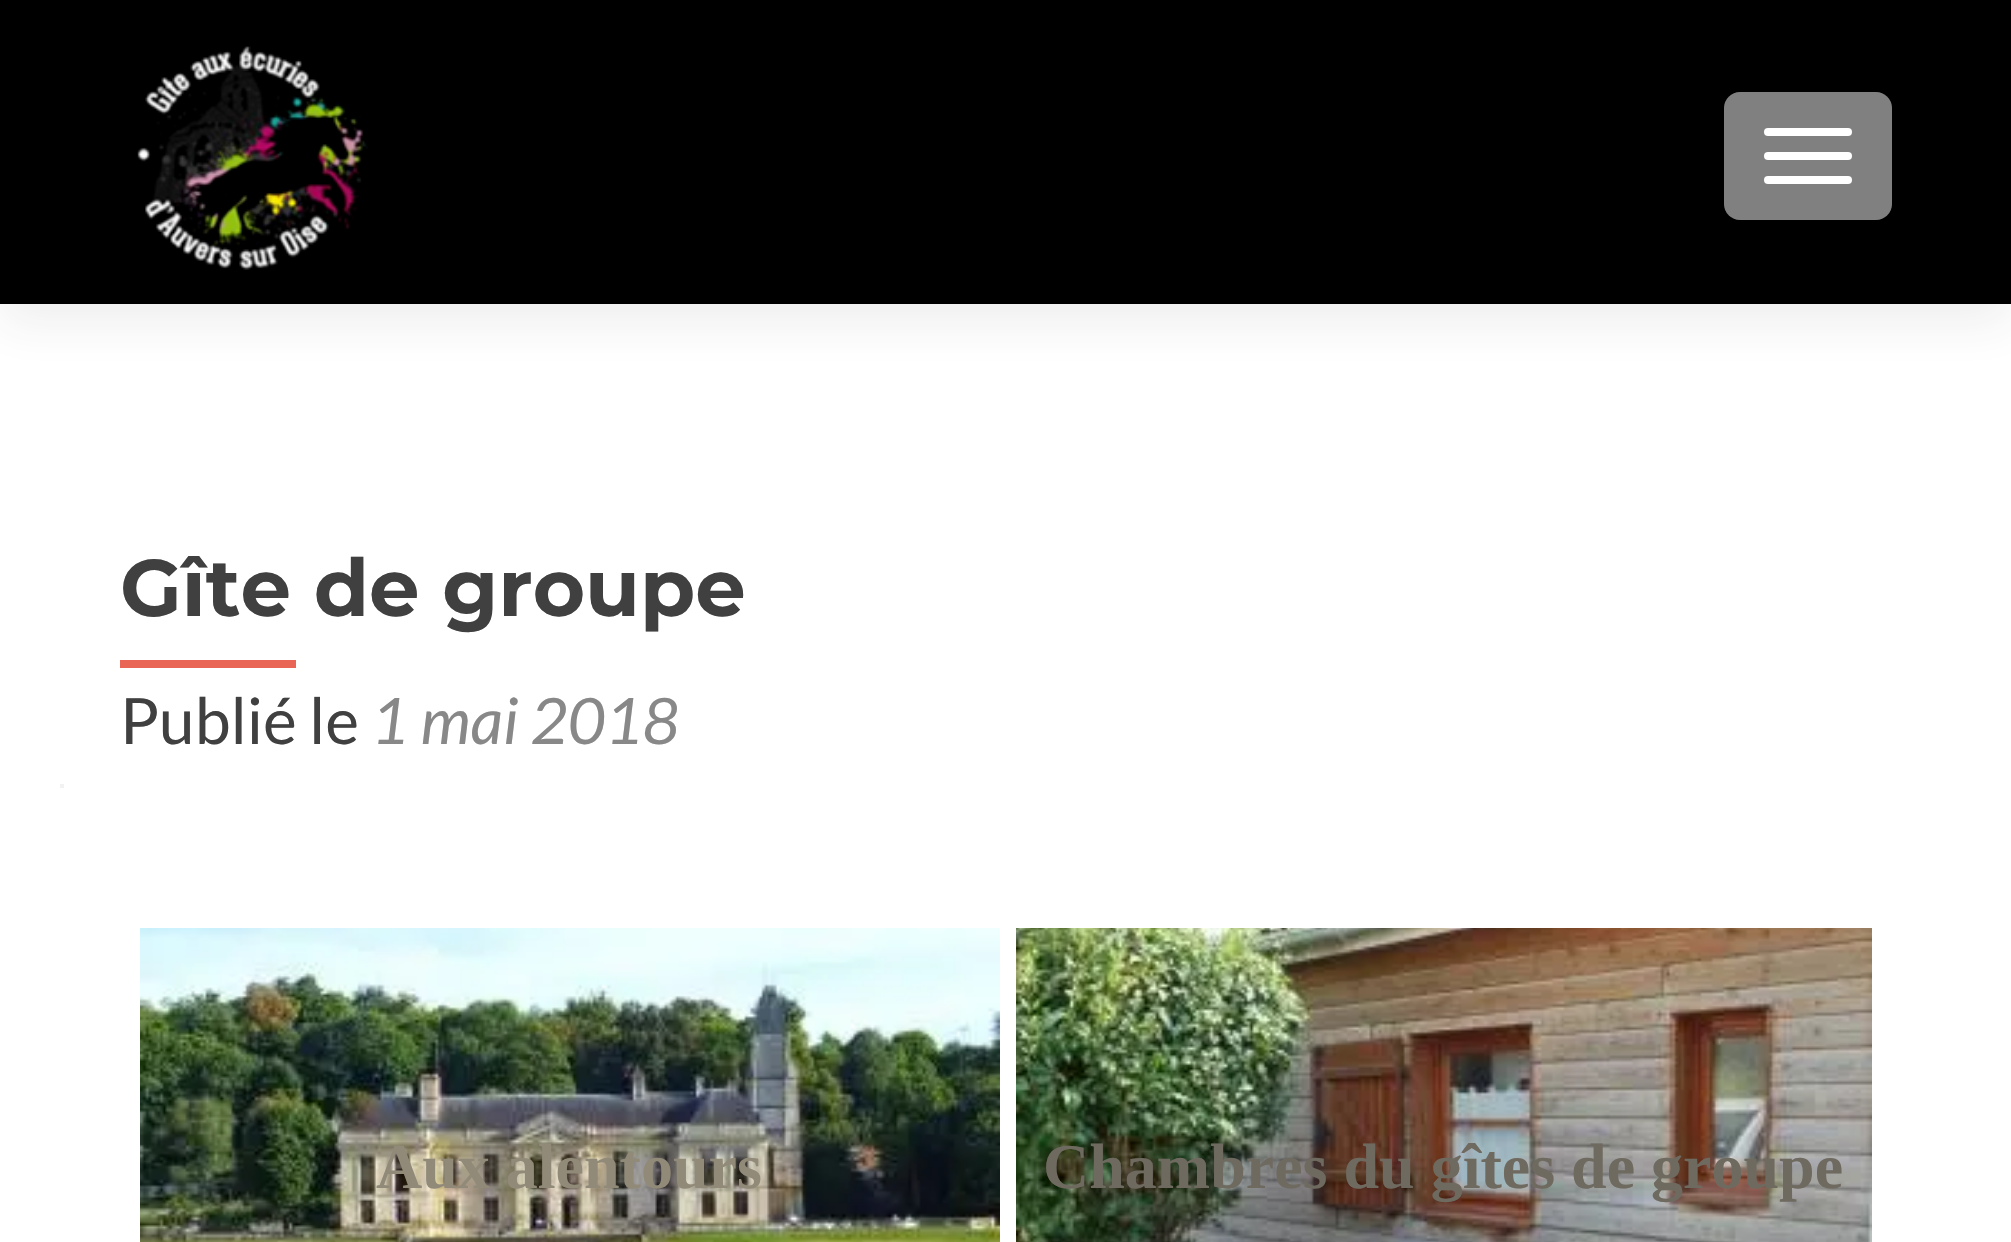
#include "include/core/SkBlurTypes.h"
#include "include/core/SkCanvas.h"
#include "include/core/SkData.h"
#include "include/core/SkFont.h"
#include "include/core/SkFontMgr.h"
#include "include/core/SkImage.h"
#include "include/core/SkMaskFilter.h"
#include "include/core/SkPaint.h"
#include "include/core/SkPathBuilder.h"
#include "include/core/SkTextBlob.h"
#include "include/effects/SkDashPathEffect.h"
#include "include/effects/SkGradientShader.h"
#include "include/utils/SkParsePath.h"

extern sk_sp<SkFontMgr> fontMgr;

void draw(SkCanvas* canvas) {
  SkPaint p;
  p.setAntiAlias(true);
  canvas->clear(SK_ColorWHITE);
  p.setColor(SkColorSetARGB(20, 50, 50, 50));
  p.setMaskFilter(SkMaskFilter::MakeBlur(kNormal_SkBlurStyle, 22));
  canvas->drawRect(SkRect::MakeLTRB(0, 20, 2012, 324), p);
  p.setMaskFilter(nullptr);
  p.setColor(SK_ColorBLACK);
  canvas->drawRect(SkRect::MakeLTRB(0, 0, 2011, 304), p);
  canvas->drawImageRect(SkImages::DeferredFromEncodedData(SkData::MakeFromFileName("images/1.png")), SkRect::MakeLTRB(137, 46, 368, 270), SkSamplingOptions());
  p.setColor(SkColorSetRGB(128, 128, 128));
  canvas->drawRoundRect(SkRect::MakeLTRB(1724, 92, 1892, 220), 16, 16, p);
  p.setColor(SK_ColorWHITE);
  canvas->drawRoundRect(SkRect::MakeLTRB(1764, 128, 1852, 136), 4, 4, p);
  canvas->drawRoundRect(SkRect::MakeLTRB(1764, 152, 1852, 160), 4, 4, p);
  canvas->drawRoundRect(SkRect::MakeLTRB(1764, 176, 1852, 184), 4, 4, p);
  p.setColor(SkColorSetRGB(242, 242, 242));
  canvas->drawRect(SkRect::MakeLTRB(60, 784, 64, 788), p);
  p.setColor(SkColorSetRGB(233, 102, 86));
  canvas->drawRect(SkRect::MakeLTRB(120, 660, 296, 668), p);
  canvas->drawImageRect(SkImages::DeferredFromEncodedData(SkData::MakeFromFileName("images/2.png")), SkRect::MakeLTRB(140, 928, 1000, 1242), SkSamplingOptions());
  canvas->drawImageRect(SkImages::DeferredFromEncodedData(SkData::MakeFromFileName("images/3.png")), SkRect::MakeLTRB(1016, 928, 1872, 1242), SkSamplingOptions());
  SkFont font1(fontMgr->matchFamilyStyle("Montserrat", SkFontStyle::Bold()), 80);
  font1.setSubpixel(true);
  p.setColor(SkColorSetRGB(64, 64, 64));
  canvas->drawString("Gîte de groupe", 120, 616, font1, p);
  SkFont font2(fontMgr->matchFamilyStyle("Lato", SkFontStyle::Normal()), 64);
  font2.setSubpixel(true);
  canvas->drawString("Publié le", 120, 744, font2, p);
  SkFont font3(fontMgr->matchFamilyStyle("Lato", SkFontStyle::Italic()), 64);
  font3.setSubpixel(true);
  p.setColor(SkColorSetRGB(136, 136, 136));
  canvas->drawString("1 mai 2018", 371, 744, font3, p);
  SkFont font4(fontMgr->matchFamilyStyle("Liberation Serif", SkFontStyle::Bold()), 64);
  font4.setSubpixel(true);
  p.setColor(SkColorSetRGB(145, 138, 121));
  canvas->drawString("Aux alentours", 376, 1188, font4, p);
  p.setColor(SkColorSetRGB(111, 106, 96));
  canvas->drawString("Chambres du gîtes de groupe", 1043, 1188, font4, p);
}
